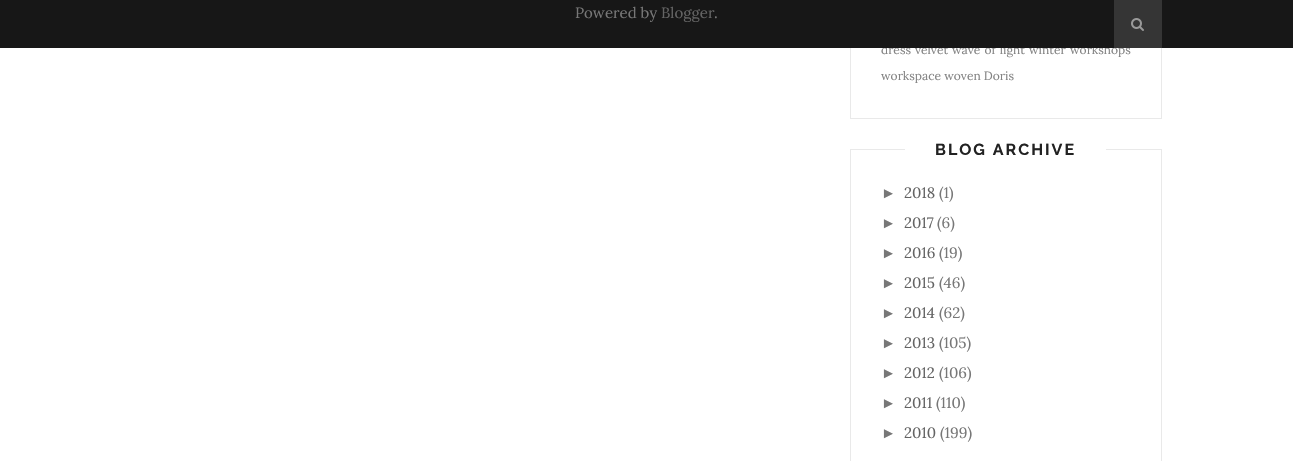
#include "include/core/SkBlurTypes.h"
#include "include/core/SkCanvas.h"
#include "include/core/SkData.h"
#include "include/core/SkFont.h"
#include "include/core/SkFontMgr.h"
#include "include/core/SkImage.h"
#include "include/core/SkMaskFilter.h"
#include "include/core/SkPaint.h"
#include "include/core/SkPathBuilder.h"
#include "include/core/SkTextBlob.h"
#include "include/effects/SkDashPathEffect.h"
#include "include/effects/SkGradientShader.h"
#include "include/utils/SkParsePath.h"

extern sk_sp<SkFontMgr> fontMgr;

void draw(SkCanvas* canvas) {
  SkPaint p;
  p.setAntiAlias(true);
  auto spacedText = [&](const char* s, float x, float y, const SkFont& font, const SkPaint& ink, float letter, float word) {
    std::vector<SkGlyphID> glyphs(font.countText(s, strlen(s), SkTextEncoding::kUTF8));
    std::vector<float> xs(glyphs.size());
    font.textToGlyphs(s, strlen(s), SkTextEncoding::kUTF8, glyphs);
    font.getXPos(glyphs, xs, x);
    float extra = 0;
    for (size_t i = 0; i < glyphs.size(); i++) {
      xs[i] += extra;
      extra += letter + word * (glyphs[i] == font.unicharToGlyph(' '));
    }
    canvas->drawTextBlob(SkTextBlob::MakeFromPosHGlyphs(glyphs, xs, y, font), 0, 0, ink);
  };
  canvas->clear(SK_ColorWHITE);
  p.setStyle(SkPaint::kStroke_Style);
  p.setStrokeWidth(1);
  p.setColor(SkColorSetRGB(233, 233, 233));
  canvas->drawRect(SkRect::MakeLTRB(850.5f, -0.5f, 1161.5f, 118.5f), p);
  canvas->drawRect(SkRect::MakeLTRB(850.5f, 149.5f, 1161.5f, 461.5f), p);
  p.setStyle(SkPaint::kFill_Style);
  p.setColor(SK_ColorWHITE);
  canvas->drawRect(SkRect::MakeLTRB(905, 149, 1106, 150), p);
  SkFont font1(fontMgr->matchFamilyStyle("Lora", SkFontStyle::Normal()), 12);
  font1.setSubpixel(true);
  p.setColor(SkColorSetRGB(131, 131, 131));
  canvas->drawString("dress", 881, 54, font1, p);
  canvas->drawString("velvet", 915, 54, font1, p);
  spacedText("wave of light", 952, 54, font1, p, 0, 1);
  canvas->drawString("winter", 1029, 54, font1, p);
  canvas->drawString("workshops", 1070, 54, font1, p);
  p.setColor(SkColorSetRGB(23, 23, 23));
  canvas->drawRect(SkRect::MakeLTRB(0, 0, 1293, 48), p);
  p.setColor(SkColorSetRGB(53, 53, 53));
  canvas->drawRect(SkRect::MakeLTRB(1114, 0, 1162, 48), p);
  canvas->drawImageRect(SkImages::DeferredFromEncodedData(SkData::MakeFromFileName("images/1.png")), SkRect::MakeLTRB(1131, 18, 1144, 31), SkSamplingOptions());
  SkFont font2(fontMgr->matchFamilyStyle("Lora", SkFontStyle::Normal()), 15);
  font2.setSubpixel(true);
  p.setColor(SkColorSetRGB(119, 119, 119));
  canvas->drawString(".", 714, 18, font2, p);
  p.setColor(SkColorSetRGB(100, 100, 100));
  canvas->drawString("Blogger", 661, 18, font2, p);
  p.setColor(SkColorSetRGB(119, 119, 119));
  canvas->drawString("Powered by", 575, 18, font2, p);
  p.setColor(SkColorSetRGB(131, 131, 131));
  canvas->drawString("workspace woven Doris", 881, 80, font1, p);
  SkFont font3(fontMgr->matchFamilyStyle("Raleway", SkFontStyle::Bold()), 16);
  font3.setSubpixel(true);
  p.setColor(SkColorSetRGB(34, 34, 34));
  spacedText("BLOG ARCHIVE", 935, 155, font3, p, 2, 0);
  SkFont font4(fontMgr->matchFamilyStyle("Liberation Sans", SkFontStyle::Normal()), 15);
  font4.setSubpixel(true);
  p.setColor(SkColorSetRGB(119, 119, 119));
  canvas->drawString("►", 881, 198, font4, p);
  p.setColor(SkColorSetRGB(100, 100, 100));
  canvas->drawString("2018", 904, 198, font2, p);
  p.setColor(SkColorSetRGB(119, 119, 119));
  canvas->drawString("(1)", 939, 198, font2, p);
  canvas->drawString("►", 881, 228, font4, p);
  p.setColor(SkColorSetRGB(100, 100, 100));
  canvas->drawString("2017", 904, 228, font2, p);
  p.setColor(SkColorSetRGB(119, 119, 119));
  canvas->drawString("(6)", 937, 228, font2, p);
  canvas->drawString("►", 881, 258, font4, p);
  p.setColor(SkColorSetRGB(100, 100, 100));
  canvas->drawString("2016", 904, 258, font2, p);
  p.setColor(SkColorSetRGB(119, 119, 119));
  canvas->drawString("(19)", 939, 258, font2, p);
  canvas->drawString("►", 881, 288, font4, p);
  p.setColor(SkColorSetRGB(100, 100, 100));
  canvas->drawString("2015", 904, 288, font2, p);
  p.setColor(SkColorSetRGB(119, 119, 119));
  canvas->drawString("(46)", 939, 288, font2, p);
  canvas->drawString("►", 881, 318, font4, p);
  p.setColor(SkColorSetRGB(100, 100, 100));
  canvas->drawString("2014", 904, 318, font2, p);
  p.setColor(SkColorSetRGB(119, 119, 119));
  canvas->drawString("(62)", 939, 318, font2, p);
  canvas->drawString("►", 881, 348, font4, p);
  p.setColor(SkColorSetRGB(100, 100, 100));
  canvas->drawString("2013", 904, 348, font2, p);
  p.setColor(SkColorSetRGB(119, 119, 119));
  canvas->drawString("(105)", 939, 348, font2, p);
  canvas->drawString("►", 881, 378, font4, p);
  p.setColor(SkColorSetRGB(100, 100, 100));
  canvas->drawString("2012", 904, 378, font2, p);
  p.setColor(SkColorSetRGB(119, 119, 119));
  canvas->drawString("(106)", 939, 378, font2, p);
  canvas->drawString("►", 881, 408, font4, p);
  p.setColor(SkColorSetRGB(100, 100, 100));
  canvas->drawString("2011", 904, 408, font2, p);
  p.setColor(SkColorSetRGB(119, 119, 119));
  canvas->drawString("(110)", 936, 408, font2, p);
  canvas->drawString("►", 881, 438, font4, p);
  p.setColor(SkColorSetRGB(100, 100, 100));
  canvas->drawString("2010", 904, 438, font2, p);
  p.setColor(SkColorSetRGB(119, 119, 119));
  canvas->drawString("(199)", 940, 438, font2, p);
}
